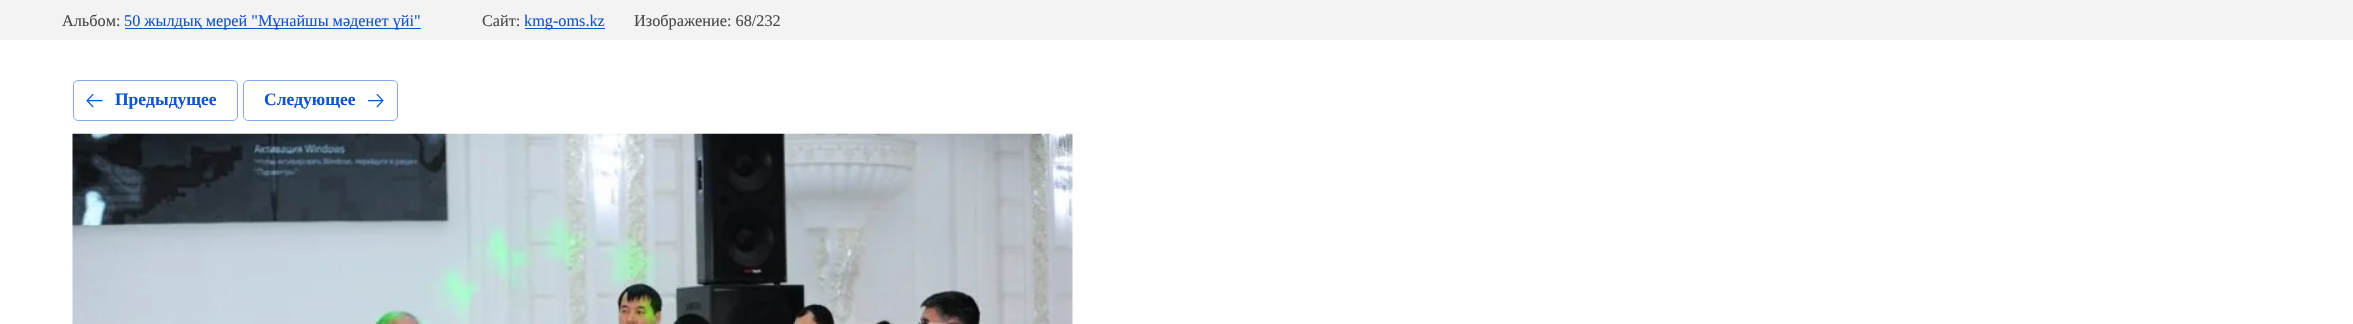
#include "include/core/SkBlurTypes.h"
#include "include/core/SkCanvas.h"
#include "include/core/SkData.h"
#include "include/core/SkFont.h"
#include "include/core/SkFontMgr.h"
#include "include/core/SkImage.h"
#include "include/core/SkMaskFilter.h"
#include "include/core/SkPaint.h"
#include "include/core/SkPathBuilder.h"
#include "include/core/SkTextBlob.h"
#include "include/effects/SkDashPathEffect.h"
#include "include/effects/SkGradientShader.h"
#include "include/utils/SkParsePath.h"

extern sk_sp<SkFontMgr> fontMgr;

void draw(SkCanvas* canvas) {
  SkPaint p;
  p.setAntiAlias(true);
  canvas->clear(SK_ColorWHITE);
  p.setColor(SkColorSetRGB(243, 243, 243));
  canvas->drawRect(SkRect::MakeLTRB(0, 0, 2353, 40), p);
  p.setColor(SkColorSetRGB(17, 85, 204));
  canvas->drawRect(SkRect::MakeLTRB(125, 28, 421, 29), p);
  canvas->drawRect(SkRect::MakeLTRB(525, 28, 605, 29), p);
  p.setStyle(SkPaint::kStroke_Style);
  p.setStrokeWidth(1);
  p.setColor(SkColorSetRGB(136, 170, 230));
  canvas->drawRoundRect(SkRect::MakeLTRB(73.5f, 80.5f, 237.5f, 120.5f), 4.5f, 4.5f, p);
  canvas->drawImageRect(SkImages::DeferredFromEncodedData(SkData::MakeFromFileName("images/1.png")), SkRect::MakeLTRB(86, 94, 103, 108), SkSamplingOptions());
  canvas->drawRoundRect(SkRect::MakeLTRB(243.5f, 80.5f, 397.5f, 120.5f), 4.5f, 4.5f, p);
  canvas->drawImageRect(SkImages::DeferredFromEncodedData(SkData::MakeFromFileName("images/2.png")), SkRect::MakeLTRB(368, 94, 384, 108), SkSamplingOptions());
  canvas->drawImageRect(SkImages::DeferredFromEncodedData(SkData::MakeFromFileName("images/3.png")), SkRect::MakeLTRB(72, 133, 1073, 324), SkSamplingOptions());
  SkFont font1(fontMgr->matchFamilyStyle("Liberation Serif", SkFontStyle::Normal()), 16.25f);
  font1.setSubpixel(true);
  p.setStyle(SkPaint::kFill_Style);
  p.setColor(SkColorSetRGB(72, 72, 72));
  canvas->drawString("Альбом:", 62, 26, font1, p);
  p.setColor(SkColorSetRGB(17, 85, 204));
  canvas->drawString("50 жылдық мерей \"Мұнайшы мәденет үйі\"", 124, 26, font1, p);
  p.setColor(SkColorSetRGB(72, 72, 72));
  canvas->drawString("Сайт:", 482, 26, font1, p);
  p.setColor(SkColorSetRGB(17, 85, 204));
  canvas->drawString("kmg-oms.kz", 524, 26, font1, p);
  p.setColor(SkColorSetRGB(72, 72, 72));
  canvas->drawString("Изображение: 68/232", 634, 26, font1, p);
  SkFont font2(fontMgr->matchFamilyStyle("Liberation Serif", SkFontStyle::Bold()), 17.5f);
  font2.setSubpixel(true);
  p.setColor(SkColorSetRGB(17, 85, 204));
  canvas->drawString("Предыдущее", 115, 105, font2, p);
  canvas->drawString("Следующее", 264, 105, font2, p);
}
